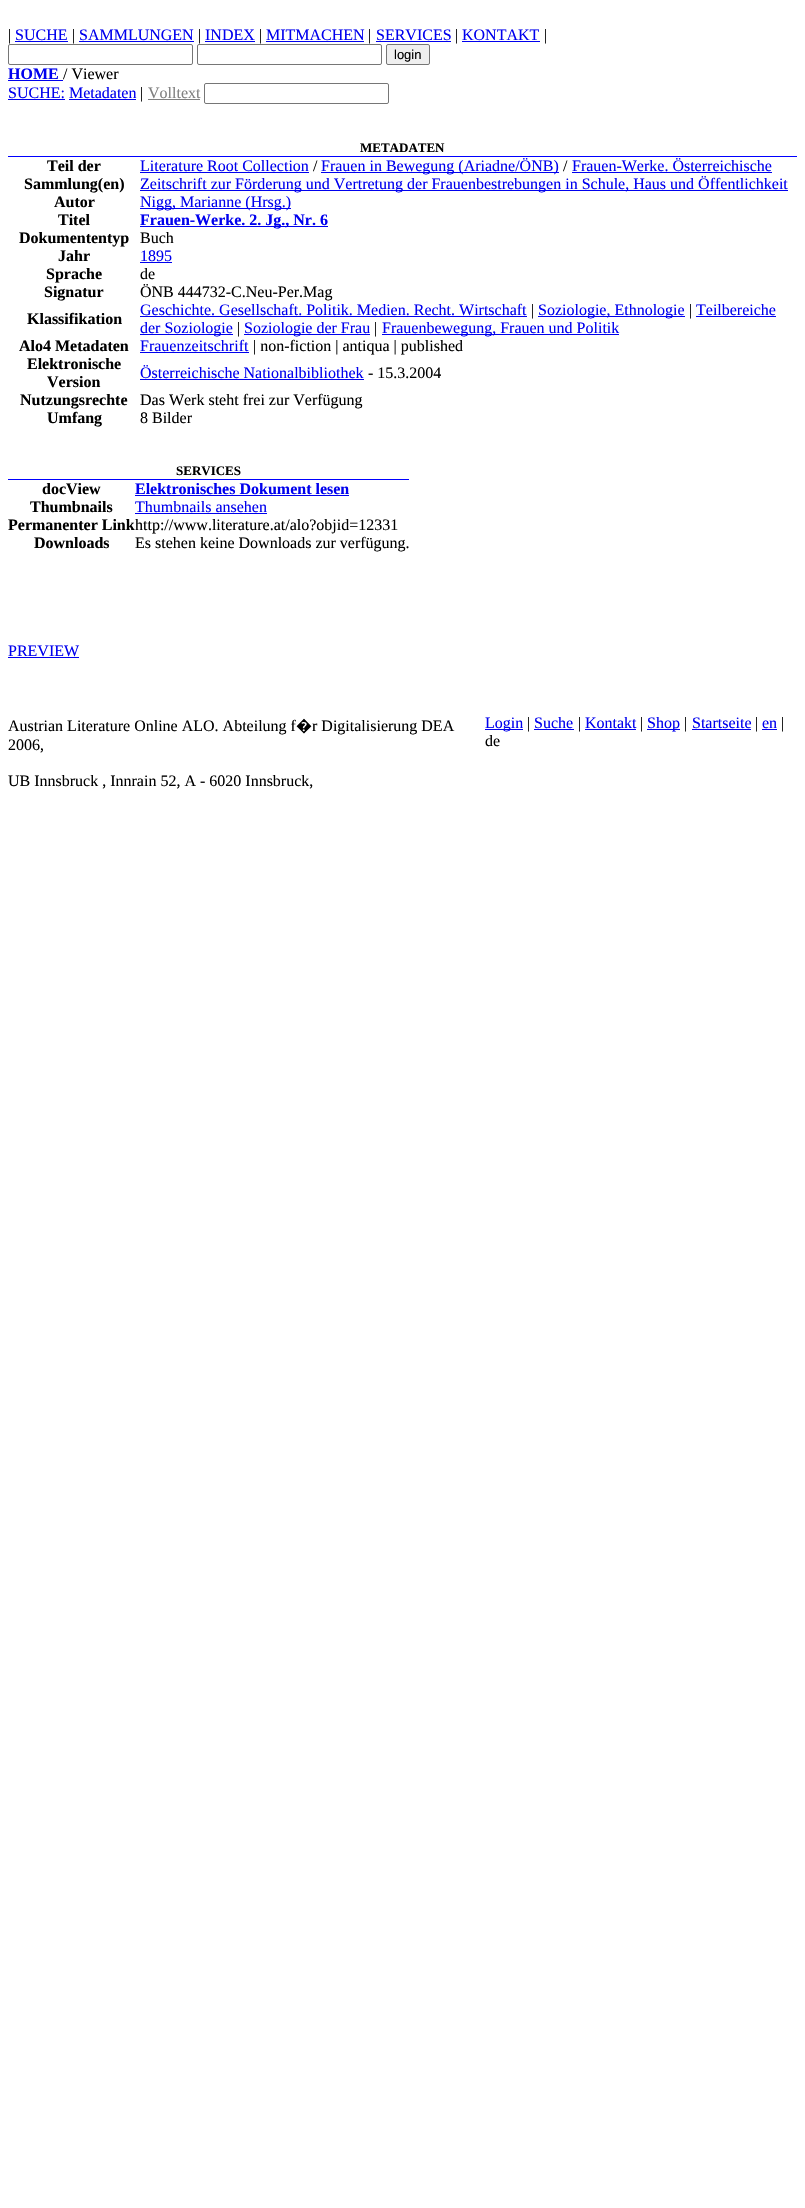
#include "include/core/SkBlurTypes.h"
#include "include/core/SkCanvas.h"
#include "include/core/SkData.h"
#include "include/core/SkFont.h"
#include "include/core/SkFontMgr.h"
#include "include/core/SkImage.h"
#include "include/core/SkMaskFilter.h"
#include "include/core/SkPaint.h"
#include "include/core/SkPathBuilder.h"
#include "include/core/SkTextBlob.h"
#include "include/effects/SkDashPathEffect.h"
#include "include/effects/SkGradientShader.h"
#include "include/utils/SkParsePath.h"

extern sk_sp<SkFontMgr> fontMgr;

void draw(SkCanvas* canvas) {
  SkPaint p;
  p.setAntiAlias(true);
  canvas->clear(SK_ColorWHITE);
  p.setColor(SkColorSetRGB(0, 0, 238));
  canvas->drawRect(SkRect::MakeLTRB(15, 41, 68, 42), p);
  canvas->drawRect(SkRect::MakeLTRB(79, 41, 194, 42), p);
  canvas->drawRect(SkRect::MakeLTRB(205, 41, 255, 42), p);
  canvas->drawRect(SkRect::MakeLTRB(266, 41, 364, 42), p);
  canvas->drawRect(SkRect::MakeLTRB(376, 41, 451, 42), p);
  canvas->drawRect(SkRect::MakeLTRB(462, 41, 540, 42), p);
  p.setStyle(SkPaint::kStroke_Style);
  p.setStrokeWidth(1);
  p.setColor(SkColorSetRGB(118, 118, 118));
  canvas->drawRoundRect(SkRect::MakeLTRB(8.5f, 44.5f, 192.5f, 64.5f), 1.5f, 1.5f, p);
  canvas->drawRoundRect(SkRect::MakeLTRB(197.5f, 44.5f, 381.5f, 64.5f), 1.5f, 1.5f, p);
  p.setStyle(SkPaint::kFill_Style);
  p.setColor(SkColorSetRGB(239, 239, 239));
  canvas->drawRoundRect(SkRect::MakeLTRB(386.5f, 44.5f, 429.5f, 64.5f), 1.5f, 1.5f, p);
  p.setStyle(SkPaint::kStroke_Style);
  p.setColor(SkColorSetRGB(118, 118, 118));
  canvas->drawRoundRect(SkRect::MakeLTRB(386.5f, 44.5f, 429.5f, 64.5f), 1.5f, 1.5f, p);
  p.setStyle(SkPaint::kFill_Style);
  p.setColor(SkColorSetRGB(0, 0, 238));
  canvas->drawRect(SkRect::MakeLTRB(8, 80, 63, 81), p);
  canvas->drawRect(SkRect::MakeLTRB(8, 99, 65, 100), p);
  p.setColor(SkColorSetRGB(128, 128, 128));
  canvas->drawRect(SkRect::MakeLTRB(148, 99, 200, 100), p);
  p.setStyle(SkPaint::kStroke_Style);
  p.setColor(SkColorSetRGB(118, 118, 118));
  canvas->drawRoundRect(SkRect::MakeLTRB(204.5f, 83.5f, 388.5f, 103.5f), 1.5f, 1.5f, p);
  p.setStyle(SkPaint::kFill_Style);
  p.setColor(SkColorSetRGB(0, 0, 238));
  canvas->drawRect(SkRect::MakeLTRB(69, 99, 136, 100), p);
  p.setColor(SkColorSetRGB(0, 0, 255));
  canvas->drawRect(SkRect::MakeLTRB(8, 156, 797, 157), p);
  p.setColor(SkColorSetRGB(0, 0, 238));
  canvas->drawRect(SkRect::MakeLTRB(140, 172, 309, 173), p);
  canvas->drawRect(SkRect::MakeLTRB(321, 172, 559, 173), p);
  canvas->drawRect(SkRect::MakeLTRB(572, 172, 772, 173), p);
  canvas->drawRect(SkRect::MakeLTRB(140, 190, 788, 191), p);
  canvas->drawRect(SkRect::MakeLTRB(140, 208, 291, 209), p);
  canvas->drawRect(SkRect::MakeLTRB(140, 226, 328, 227), p);
  canvas->drawRect(SkRect::MakeLTRB(140, 262, 172, 263), p);
  canvas->drawRect(SkRect::MakeLTRB(140, 316, 527, 317), p);
  canvas->drawRect(SkRect::MakeLTRB(538, 316, 685, 317), p);
  canvas->drawRect(SkRect::MakeLTRB(696, 316, 776, 317), p);
  canvas->drawRect(SkRect::MakeLTRB(140, 334, 233, 335), p);
  canvas->drawRect(SkRect::MakeLTRB(244, 334, 370, 335), p);
  canvas->drawRect(SkRect::MakeLTRB(382, 334, 619, 335), p);
  canvas->drawRect(SkRect::MakeLTRB(140, 352, 249, 353), p);
  canvas->drawRect(SkRect::MakeLTRB(140, 379, 364, 380), p);
  p.setColor(SkColorSetRGB(0, 0, 255));
  canvas->drawRect(SkRect::MakeLTRB(8, 479, 409, 480), p);
  p.setColor(SkColorSetRGB(0, 0, 238));
  canvas->drawRect(SkRect::MakeLTRB(135, 495, 349, 496), p);
  canvas->drawRect(SkRect::MakeLTRB(135, 513, 267, 514), p);
  canvas->drawRect(SkRect::MakeLTRB(8, 657, 79, 658), p);
  canvas->drawRect(SkRect::MakeLTRB(485, 729, 523, 730), p);
  canvas->drawRect(SkRect::MakeLTRB(534, 729, 574, 730), p);
  canvas->drawRect(SkRect::MakeLTRB(585, 729, 636, 730), p);
  canvas->drawRect(SkRect::MakeLTRB(647, 729, 680, 730), p);
  canvas->drawRect(SkRect::MakeLTRB(692, 729, 751, 730), p);
  canvas->drawRect(SkRect::MakeLTRB(762, 729, 777, 730), p);
  SkFont font1(fontMgr->matchFamilyStyle("Liberation Serif", SkFontStyle::Normal()), 16);
  font1.setSubpixel(true);
  p.setColor(SK_ColorBLACK);
  canvas->drawString("|", 8, 40, font1, p);
  p.setColor(SkColorSetRGB(0, 0, 238));
  canvas->drawString("SUCHE", 15, 40, font1, p);
  p.setColor(SK_ColorBLACK);
  canvas->drawString("|", 72, 40, font1, p);
  p.setColor(SkColorSetRGB(0, 0, 238));
  canvas->drawString("SAMMLUNGEN", 79, 40, font1, p);
  p.setColor(SK_ColorBLACK);
  canvas->drawString("|", 198, 40, font1, p);
  p.setColor(SkColorSetRGB(0, 0, 238));
  canvas->drawString("INDEX", 205, 40, font1, p);
  p.setColor(SK_ColorBLACK);
  canvas->drawString("|", 259, 40, font1, p);
  p.setColor(SkColorSetRGB(0, 0, 238));
  canvas->drawString("MITMACHEN", 266, 40, font1, p);
  p.setColor(SK_ColorBLACK);
  canvas->drawString("|", 368, 40, font1, p);
  p.setColor(SkColorSetRGB(0, 0, 238));
  canvas->drawString("SERVICES", 376, 40, font1, p);
  p.setColor(SK_ColorBLACK);
  canvas->drawString("|", 455, 40, font1, p);
  p.setColor(SkColorSetRGB(0, 0, 238));
  canvas->drawString("KONTAKT", 462, 40, font1, p);
  p.setColor(SK_ColorBLACK);
  canvas->drawString("|", 544, 40, font1, p);
  SkFont font2(fontMgr->matchFamilyStyle("Liberation Sans", SkFontStyle::Normal()), 13);
  font2.setSubpixel(true);
  canvas->drawString("login", 394, 59, font2, p);
  SkFont font3(fontMgr->matchFamilyStyle("Liberation Serif", SkFontStyle::Bold()), 16);
  font3.setSubpixel(true);
  p.setColor(SkColorSetRGB(0, 0, 238));
  canvas->drawString("HOME", 8, 79, font3, p);
  p.setColor(SK_ColorBLACK);
  canvas->drawString("/ Viewer", 63, 79, font1, p);
  p.setColor(SkColorSetRGB(0, 0, 238));
  canvas->drawString("SUCHE: Metadaten", 8, 98, font1, p);
  p.setColor(SK_ColorBLACK);
  canvas->drawString("|", 140, 98, font1, p);
  p.setColor(SkColorSetRGB(128, 128, 128));
  canvas->drawString("Volltext", 148, 98, font1, p);
  SkFont font4(fontMgr->matchFamilyStyle("Liberation Serif", SkFontStyle::Bold()), 13);
  font4.setSubpixel(true);
  p.setColor(SK_ColorBLACK);
  canvas->drawString("METADATEN", 360, 152, font4, p);
  canvas->drawString("Teil der", 47, 171, font3, p);
  canvas->drawString("Sammlung(en)", 24, 189, font3, p);
  p.setColor(SkColorSetRGB(0, 0, 238));
  canvas->drawString("Literature Root Collection", 140, 171, font1, p);
  p.setColor(SK_ColorBLACK);
  canvas->drawString("/", 313, 171, font1, p);
  p.setColor(SkColorSetRGB(0, 0, 238));
  canvas->drawString("Frauen in Bewegung (Ariadne/ÖNB)", 321, 171, font1, p);
  p.setColor(SK_ColorBLACK);
  canvas->drawString("/", 563, 171, font1, p);
  p.setColor(SkColorSetRGB(0, 0, 238));
  canvas->drawString("Frauen-Werke. Österreichische", 572, 171, font1, p);
  canvas->drawString("Zeitschrift zur Förderung und Vertretung der Frauenbestrebungen in Schule, Haus und Öffentlichkeit", 140, 189, font1, p);
  p.setColor(SK_ColorBLACK);
  canvas->drawString("Autor", 54, 207, font3, p);
  p.setColor(SkColorSetRGB(0, 0, 238));
  canvas->drawString("Nigg, Marianne (Hrsg.)", 140, 207, font1, p);
  p.setColor(SK_ColorBLACK);
  canvas->drawString("Titel", 58, 225, font3, p);
  p.setColor(SkColorSetRGB(0, 0, 238));
  canvas->drawString("Frauen-Werke. 2. Jg., Nr. 6", 140, 225, font3, p);
  p.setColor(SK_ColorBLACK);
  canvas->drawString("Dokumententyp", 19, 243, font3, p);
  canvas->drawString("Buch", 140, 243, font1, p);
  canvas->drawString("Jahr", 58, 261, font3, p);
  p.setColor(SkColorSetRGB(0, 0, 238));
  canvas->drawString("1895", 140, 261, font1, p);
  p.setColor(SK_ColorBLACK);
  canvas->drawString("Sprache", 46, 279, font3, p);
  canvas->drawString("de", 140, 279, font1, p);
  canvas->drawString("Signatur", 44, 297, font3, p);
  canvas->drawString("ÖNB 444732-C.Neu-Per.Mag", 140, 297, font1, p);
  canvas->drawString("Klassifikation", 27, 324, font3, p);
  p.setColor(SkColorSetRGB(0, 0, 238));
  canvas->drawString("Geschichte. Gesellschaft. Politik. Medien. Recht. Wirtschaft", 140, 315, font1, p);
  p.setColor(SK_ColorBLACK);
  canvas->drawString("|", 531, 315, font1, p);
  p.setColor(SkColorSetRGB(0, 0, 238));
  canvas->drawString("Soziologie, Ethnologie", 538, 315, font1, p);
  p.setColor(SK_ColorBLACK);
  canvas->drawString("|", 689, 315, font1, p);
  p.setColor(SkColorSetRGB(0, 0, 238));
  canvas->drawString("Teilbereiche", 696, 315, font1, p);
  canvas->drawString("der Soziologie", 140, 333, font1, p);
  p.setColor(SK_ColorBLACK);
  canvas->drawString("|", 237, 333, font1, p);
  p.setColor(SkColorSetRGB(0, 0, 238));
  canvas->drawString("Soziologie der Frau", 244, 333, font1, p);
  p.setColor(SK_ColorBLACK);
  canvas->drawString("|", 374, 333, font1, p);
  p.setColor(SkColorSetRGB(0, 0, 238));
  canvas->drawString("Frauenbewegung, Frauen und Politik", 382, 333, font1, p);
  p.setColor(SK_ColorBLACK);
  canvas->drawString("Alo4 Metadaten", 19, 351, font3, p);
  p.setColor(SkColorSetRGB(0, 0, 238));
  canvas->drawString("Frauenzeitschrift", 140, 351, font1, p);
  p.setColor(SK_ColorBLACK);
  canvas->drawString("| non-fiction | antiqua | published", 253, 351, font1, p);
  canvas->drawString("Elektronische", 27, 369, font3, p);
  canvas->drawString("Version", 47, 387, font3, p);
  p.setColor(SkColorSetRGB(0, 0, 238));
  canvas->drawString("Österreichische Nationalbibliothek", 140, 378, font1, p);
  p.setColor(SK_ColorBLACK);
  canvas->drawString("- 15.3.2004", 368, 378, font1, p);
  canvas->drawString("Nutzungsrechte", 20, 405, font3, p);
  canvas->drawString("Das Werk steht frei zur Verfügung", 140, 405, font1, p);
  canvas->drawString("Umfang", 47, 423, font3, p);
  canvas->drawString("8 Bilder", 140, 423, font1, p);
  canvas->drawString("SERVICES", 176, 475, font4, p);
  canvas->drawString("docView", 42, 494, font3, p);
  p.setColor(SkColorSetRGB(0, 0, 238));
  canvas->drawString("Elektronisches Dokument lesen", 135, 494, font3, p);
  p.setColor(SK_ColorBLACK);
  canvas->drawString("Thumbnails", 30, 512, font3, p);
  p.setColor(SkColorSetRGB(0, 0, 238));
  canvas->drawString("Thumbnails ansehen", 135, 512, font1, p);
  p.setColor(SK_ColorBLACK);
  canvas->drawString("Permanenter Link", 8, 530, font3, p);
  canvas->drawString("http://www.literature.at/alo?objid=12331", 135, 530, font1, p);
  canvas->drawString("Downloads", 34, 548, font3, p);
  canvas->drawString("Es stehen keine Downloads zur verfügung.", 135, 548, font1, p);
  p.setColor(SkColorSetRGB(0, 0, 238));
  canvas->drawString("PREVIEW", 8, 656, font1, p);
  p.setColor(SK_ColorBLACK);
  canvas->drawString("Austrian Literature Online ALO. Abteilung f", 8, 731, font1, p);
  SkFont font5(fontMgr->matchFamilyStyle("Noto Sans", SkFontStyle::Normal()), 16);
  font5.setSubpixel(true);
  canvas->drawString("�", 296, 731, font5, p);
  canvas->drawString("r Digitalisierung DEA", 312, 731, font1, p);
  canvas->drawString("2006,", 8, 750, font1, p);
  canvas->drawString("UB Innsbruck , Innrain 52, A - 6020 Innsbruck,", 8, 786, font1, p);
  p.setColor(SkColorSetRGB(0, 0, 238));
  canvas->drawString("Login", 485, 728, font1, p);
  p.setColor(SK_ColorBLACK);
  canvas->drawString("|", 527, 728, font1, p);
  p.setColor(SkColorSetRGB(0, 0, 238));
  canvas->drawString("Suche", 534, 728, font1, p);
  p.setColor(SK_ColorBLACK);
  canvas->drawString("|", 578, 728, font1, p);
  p.setColor(SkColorSetRGB(0, 0, 238));
  canvas->drawString("Kontakt", 585, 728, font1, p);
  p.setColor(SK_ColorBLACK);
  canvas->drawString("|", 640, 728, font1, p);
  p.setColor(SkColorSetRGB(0, 0, 238));
  canvas->drawString("Shop", 647, 728, font1, p);
  p.setColor(SK_ColorBLACK);
  canvas->drawString("|", 684, 728, font1, p);
  p.setColor(SkColorSetRGB(0, 0, 238));
  canvas->drawString("Startseite", 692, 728, font1, p);
  p.setColor(SK_ColorBLACK);
  canvas->drawString("|", 755, 728, font1, p);
  p.setColor(SkColorSetRGB(0, 0, 238));
  canvas->drawString("en", 762, 728, font1, p);
  p.setColor(SK_ColorBLACK);
  canvas->drawString("|", 781, 728, font1, p);
  canvas->drawString("de", 485, 746, font1, p);
}
